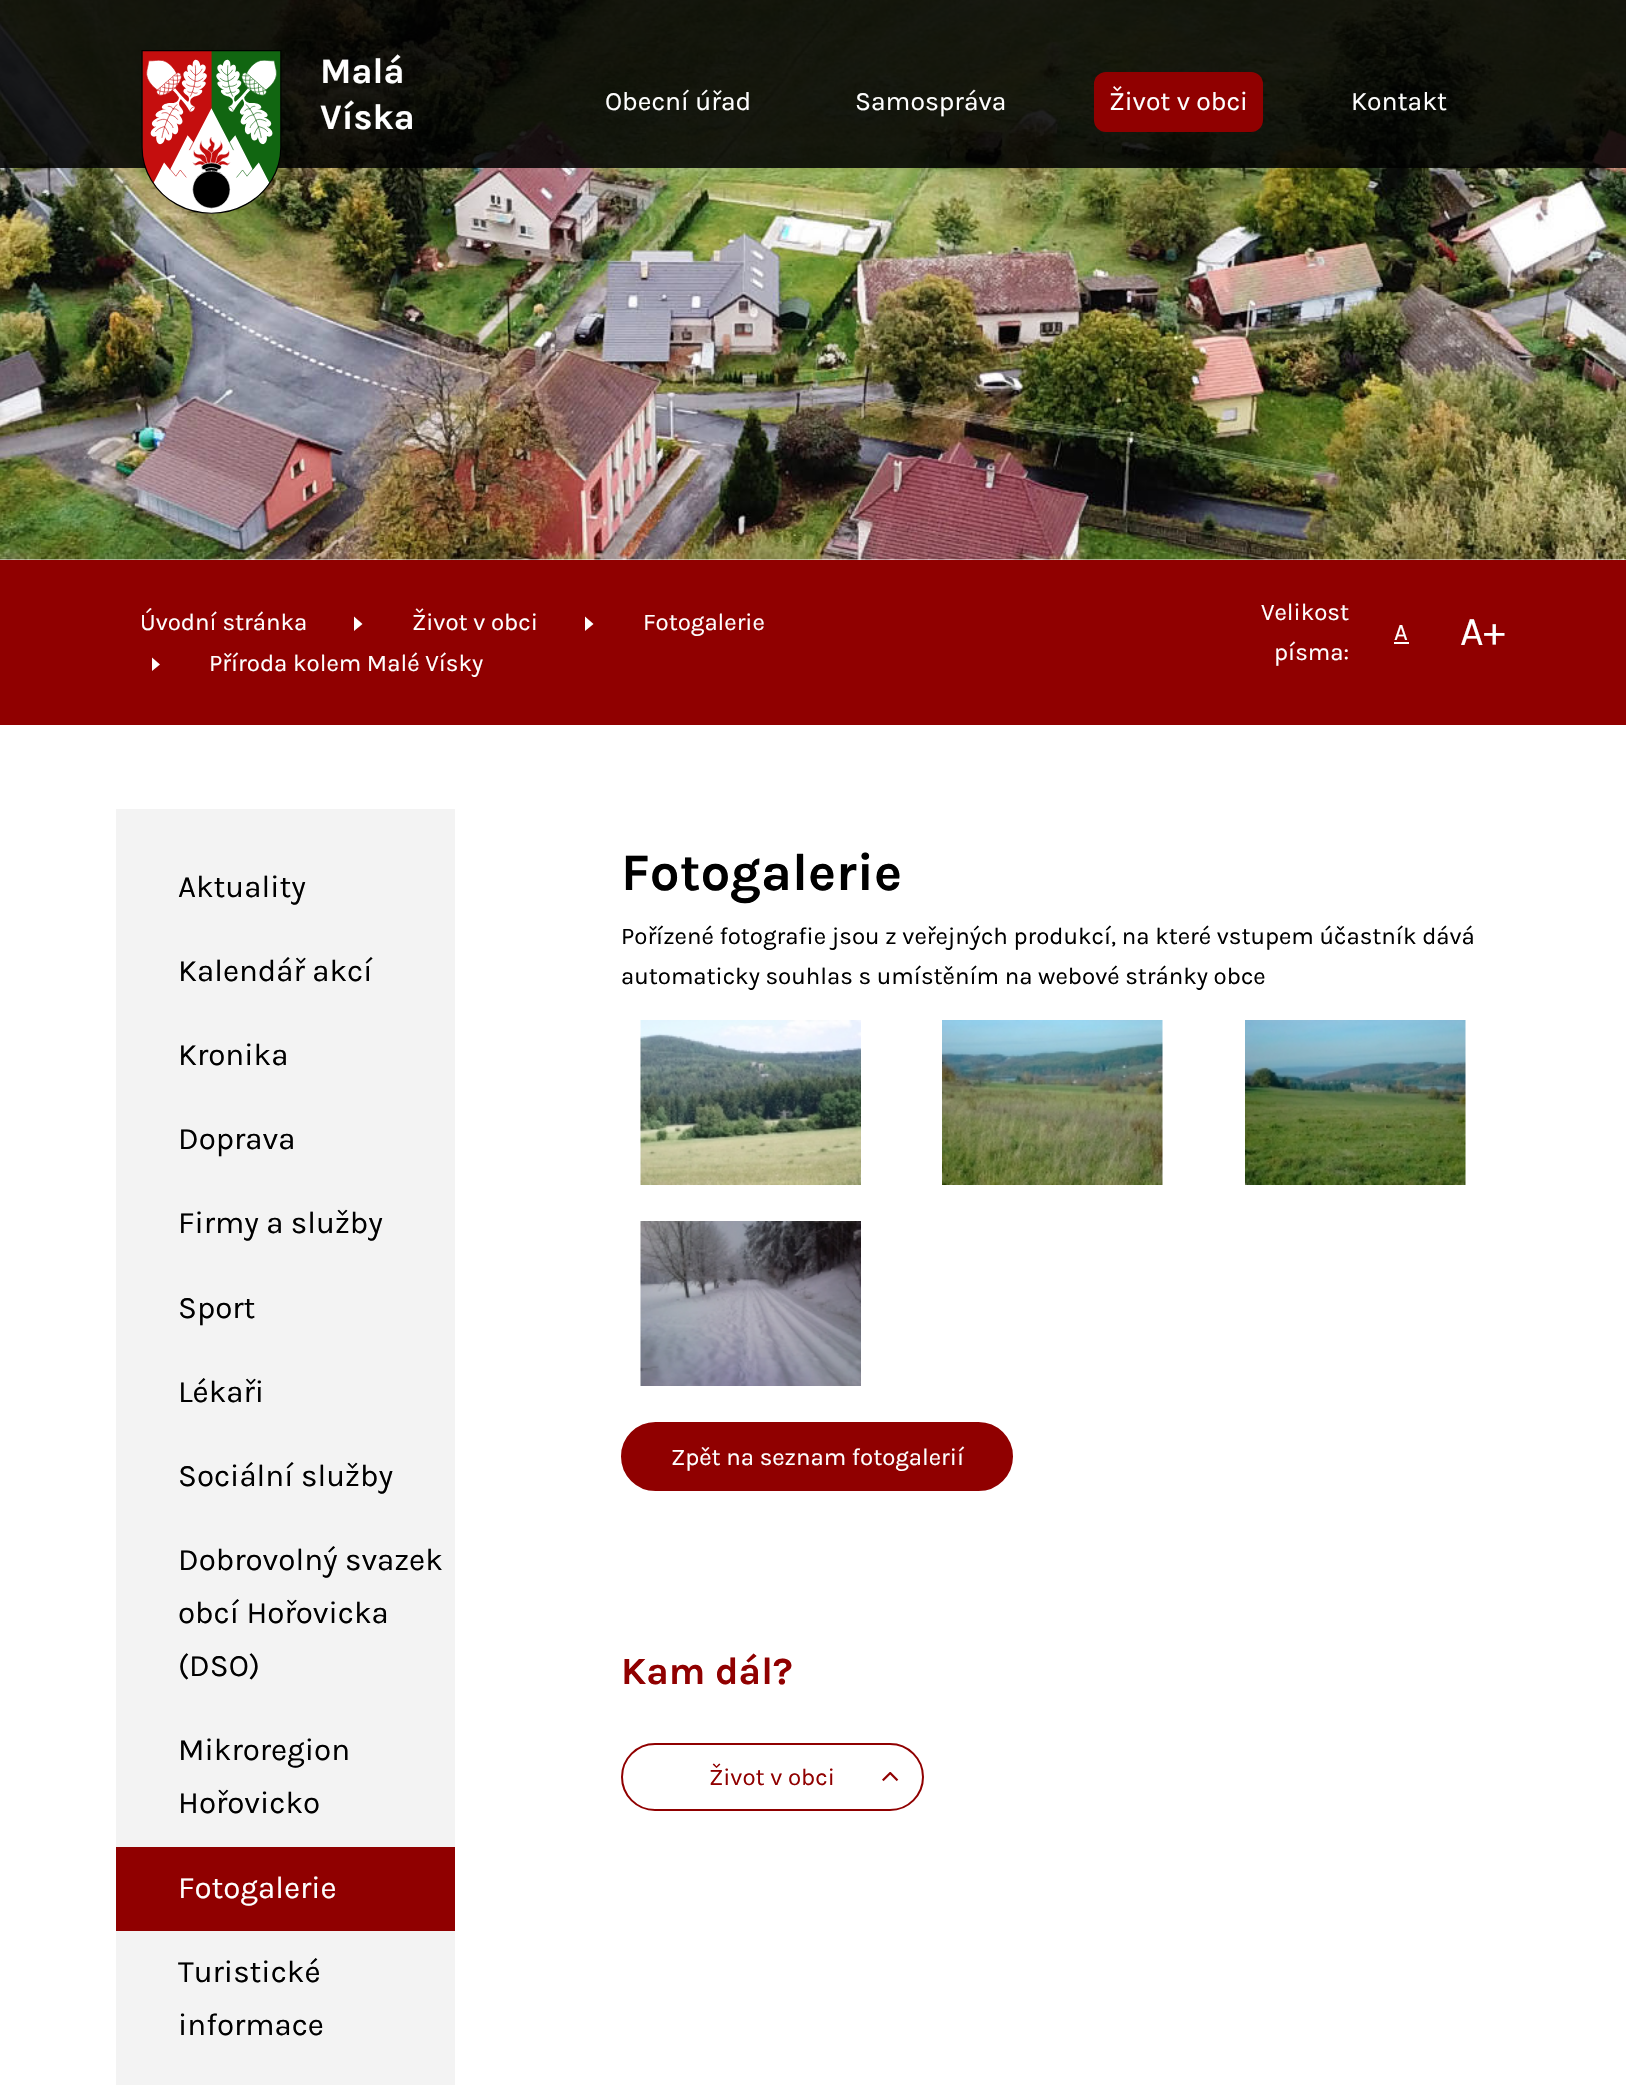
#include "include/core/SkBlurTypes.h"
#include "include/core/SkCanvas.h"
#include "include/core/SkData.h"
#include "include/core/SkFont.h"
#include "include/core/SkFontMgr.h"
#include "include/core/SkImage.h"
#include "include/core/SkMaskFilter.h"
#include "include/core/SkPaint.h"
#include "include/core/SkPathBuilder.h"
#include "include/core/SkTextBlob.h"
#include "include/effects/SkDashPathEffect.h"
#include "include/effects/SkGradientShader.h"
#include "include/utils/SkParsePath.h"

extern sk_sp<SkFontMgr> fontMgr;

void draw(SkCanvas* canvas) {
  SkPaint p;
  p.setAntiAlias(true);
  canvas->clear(SK_ColorWHITE);
  canvas->drawImageRect(SkImages::DeferredFromEncodedData(SkData::MakeFromFileName("images/1.png")), SkRect::MakeLTRB(0, 0, 1626, 560), SkSamplingOptions());
  p.setColor(SkColorSetARGB(222, 0, 0, 0));
  canvas->drawRect(SkRect::MakeLTRB(0, 0, 1626, 168), p);
  canvas->drawImageRect(SkImages::DeferredFromEncodedData(SkData::MakeFromFileName("images/2.png")), SkRect::MakeLTRB(141, 50, 282, 214), SkSamplingOptions());
  p.setColor(SkColorSetRGB(144, 0, 0));
  canvas->drawRoundRect(SkRect::MakeLTRB(1094, 72, 1263, 132), 12, 12, p);
  canvas->drawRect(SkRect::MakeLTRB(0, 560, 1626, 725), p);
  p.setColor(SK_ColorWHITE);
  canvas->drawPath(SkPathBuilder(SkPathFillType::kEvenOdd).moveTo(362.5f, 624).lineTo(354, 631).lineTo(354, 616.5f).close().detach(), p);
  canvas->drawPath(SkPathBuilder(SkPathFillType::kEvenOdd).moveTo(593.5f, 624).lineTo(585, 631).lineTo(585, 616.5f).close().detach(), p);
  canvas->save();
  canvas->clipRect(SkRect::MakeLTRB(152, 657, 161, 672));
  canvas->drawPath(SkPathBuilder(SkPathFillType::kEvenOdd).moveTo(160, 664.5f).lineTo(151.5f, 671.5f).lineTo(151.5f, 657).close().detach(), p);
  canvas->restore();
  canvas->drawRect(SkRect::MakeLTRB(1394, 642, 1409, 644), p);
  p.setColor(SkColorSetRGB(243, 243, 243));
  canvas->drawRect(SkRect::MakeLTRB(116, 809, 455, 2085), p);
  p.setColor(SkColorSetRGB(144, 0, 0));
  canvas->drawRect(SkRect::MakeLTRB(116, 1847, 455, 1931), p);
  canvas->drawImageRect(SkImages::DeferredFromEncodedData(SkData::MakeFromFileName("images/3.png")), SkRect::MakeLTRB(640, 1020, 861, 1185), SkSamplingOptions());
  canvas->drawImageRect(SkImages::DeferredFromEncodedData(SkData::MakeFromFileName("images/4.png")), SkRect::MakeLTRB(942, 1020, 1163, 1185), SkSamplingOptions());
  canvas->drawImageRect(SkImages::DeferredFromEncodedData(SkData::MakeFromFileName("images/5.png")), SkRect::MakeLTRB(1245, 1020, 1466, 1185), SkSamplingOptions());
  canvas->drawImageRect(SkImages::DeferredFromEncodedData(SkData::MakeFromFileName("images/6.png")), SkRect::MakeLTRB(640, 1221, 861, 1386), SkSamplingOptions());
  canvas->drawRoundRect(SkRect::MakeLTRB(622, 1423, 1012, 1490), 33.5f, 33.5f, p);
  p.setStyle(SkPaint::kStroke_Style);
  p.setStrokeWidth(2);
  canvas->drawRoundRect(SkRect::MakeLTRB(622, 1423, 1012, 1490), 33.5f, 33.5f, p);
  canvas->drawImageRect(SkImages::DeferredFromEncodedData(SkData::MakeFromFileName("images/7.png")), SkRect::MakeLTRB(882, 1772, 899, 1782), SkSamplingOptions());
  canvas->drawRoundRect(SkRect::MakeLTRB(622, 1744, 923, 1810), 33, 33, p);
  SkFont font1(fontMgr->matchFamilyStyle("Karla", SkFontStyle::Bold()), 36);
  font1.setSubpixel(true);
  p.setStyle(SkPaint::kFill_Style);
  p.setColor(SK_ColorWHITE);
  canvas->drawString("Malá", 320, 83, font1, p);
  canvas->drawString("Víska", 320, 129, font1, p);
  SkFont font2(fontMgr->matchFamilyStyle("Karla", SkFontStyle::Normal()), 26.5f);
  font2.setSubpixel(true);
  canvas->drawString("Obecní úřad", 605, 110, font2, p);
  canvas->drawString("Samospráva", 855, 110, font2, p);
  canvas->drawString("Život v obci", 1109, 110, font2, p);
  canvas->drawString("Kontakt", 1351, 110, font2, p);
  SkFont font3(fontMgr->matchFamilyStyle("Karla", SkFontStyle::Normal()), 24);
  font3.setSubpixel(true);
  canvas->drawString("Úvodní stránka", 140, 630, font3, p);
  canvas->drawString("Život v obci", 412, 630, font3, p);
  canvas->drawString("Fotogalerie", 643, 630, font3, p);
  canvas->drawString("Příroda kolem Malé Vísky", 209, 671, font3, p);
  canvas->drawString("Velikost", 1261, 620, font3, p);
  canvas->drawString("písma:", 1274, 660, font3, p);
  canvas->drawString("A", 1394, 640, font3, p);
  SkFont font4(fontMgr->matchFamilyStyle("Karla", SkFontStyle::Normal()), 41);
  font4.setSubpixel(true);
  canvas->drawString("A+", 1460, 645, font4, p);
  SkFont font5(fontMgr->matchFamilyStyle("Karla", SkFontStyle::Normal()), 31.25f);
  font5.setSubpixel(true);
  p.setColor(SK_ColorBLACK);
  canvas->drawString("Aktuality", 178, 897, font5, p);
  canvas->drawString("Kalendář akcí", 178, 981, font5, p);
  canvas->drawString("Kronika", 178, 1065, font5, p);
  canvas->drawString("Doprava", 178, 1149, font5, p);
  canvas->drawString("Firmy a služby", 178, 1233, font5, p);
  canvas->drawString("Sport", 178, 1318, font5, p);
  canvas->drawString("Lékaři", 178, 1402, font5, p);
  canvas->drawString("Sociální služby", 178, 1486, font5, p);
  canvas->drawString("Dobrovolný svazek", 178, 1570, font5, p);
  canvas->drawString("obcí Hořovicka", 178, 1623, font5, p);
  canvas->drawString("(DSO)", 178, 1676, font5, p);
  canvas->drawString("Mikroregion", 178, 1760, font5, p);
  canvas->drawString("Hořovicko", 178, 1813, font5, p);
  p.setColor(SK_ColorWHITE);
  canvas->drawString("Fotogalerie", 178, 1898, font5, p);
  p.setColor(SK_ColorBLACK);
  canvas->drawString("Turistické", 178, 1982, font5, p);
  canvas->drawString("informace", 178, 2035, font5, p);
  SkFont font6(fontMgr->matchFamilyStyle("Karla", SkFontStyle::Bold()), 52.75f);
  font6.setSubpixel(true);
  canvas->drawString("Fotogalerie", 621, 890, font6, p);
  canvas->drawString("Pořízené fotografie jsou z veřejných produkcí, na které vstupem účastník dává", 621, 944, font3, p);
  canvas->drawString("automaticky souhlas s umístěním na webové stránky obce", 621, 984, font3, p);
  p.setColor(SK_ColorWHITE);
  canvas->drawString("Zpět na seznam fotogalerií", 671, 1465, font3, p);
  SkFont font7(fontMgr->matchFamilyStyle("Karla", SkFontStyle::Bold()), 38.5f);
  font7.setSubpixel(true);
  p.setColor(SkColorSetRGB(144, 0, 0));
  canvas->drawString("Kam dál?", 621, 1684, font7, p);
  canvas->drawString("Život v obci", 709, 1785, font3, p);
}
